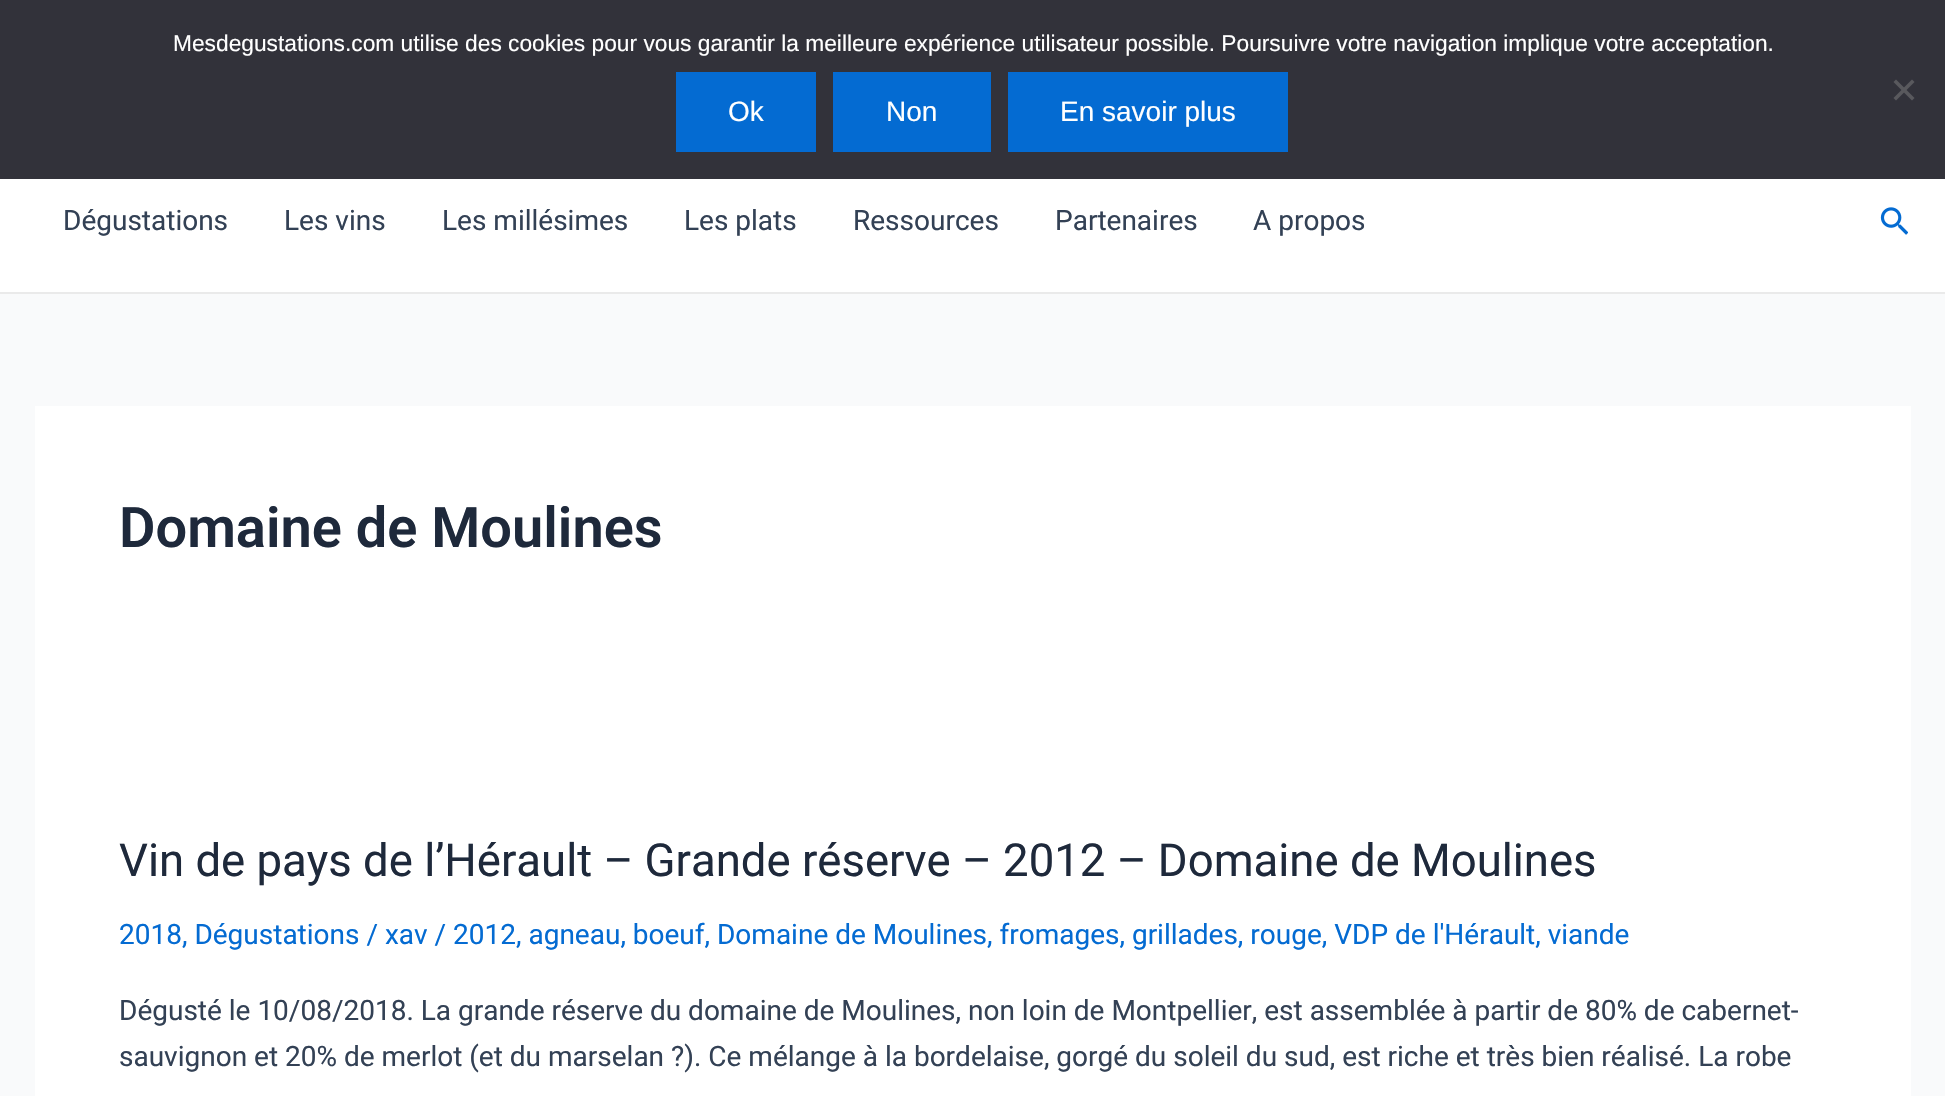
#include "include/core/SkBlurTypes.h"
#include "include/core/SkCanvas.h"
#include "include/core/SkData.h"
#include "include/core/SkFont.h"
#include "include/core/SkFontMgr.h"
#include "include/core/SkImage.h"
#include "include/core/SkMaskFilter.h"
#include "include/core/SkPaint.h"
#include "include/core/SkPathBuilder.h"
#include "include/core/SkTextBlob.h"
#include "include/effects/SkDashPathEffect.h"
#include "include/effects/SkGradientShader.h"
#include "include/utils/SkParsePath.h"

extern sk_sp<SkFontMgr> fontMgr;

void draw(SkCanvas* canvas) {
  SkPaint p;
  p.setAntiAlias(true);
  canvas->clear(SkColorSetRGB(249, 250, 251));
  p.setColor(SkColorSetRGB(50, 50, 58));
  canvas->drawRect(SkRect::MakeLTRB(0, 0, 1945, 179), p);
  p.setColor(SkColorSetRGB(89, 89, 93));
  canvas->drawPath(SkPathBuilder().moveTo(1912, 79.5f).lineTo(1914.5f, 82).lineTo(1896, 100.5f).lineTo(1893.5f, 98).close().detach(), p);
  canvas->drawPath(SkPathBuilder().moveTo(1893.5f, 82).lineTo(1896, 79.5f).lineTo(1914.5f, 98).lineTo(1912, 100.5f).close().detach(), p);
  p.setColor(SkColorSetRGB(4, 107, 210));
  canvas->drawRect(SkRect::MakeLTRB(676, 72, 816, 152), p);
  canvas->drawRect(SkRect::MakeLTRB(833, 72, 991, 152), p);
  canvas->drawRect(SkRect::MakeLTRB(1008, 72, 1288, 152), p);
  p.setColor(SK_ColorWHITE);
  canvas->drawRect(SkRect::MakeLTRB(0, 179, 1945, 292), p);
  p.setColor(SkColorSetRGB(234, 234, 234));
  canvas->drawRect(SkRect::MakeLTRB(0, 292, 1945, 294), p);
  canvas->drawImageRect(SkImages::DeferredFromEncodedData(SkData::MakeFromFileName("images/1.png")), SkRect::MakeLTRB(1880, 207, 1908, 235), SkSamplingOptions());
  p.setColor(SK_ColorWHITE);
  canvas->drawRect(SkRect::MakeLTRB(35, 406, 1911, 1096), p);
  SkFont font1(fontMgr->matchFamilyStyle("Liberation Sans", SkFontStyle::Normal()), 22.75f);
  font1.setSubpixel(true);
  canvas->drawString("Mesdegustations.com utilise des cookies pour vous garantir la meilleure expérience utilisateur possible. Poursuivre votre navigation implique votre acceptation.", 173, 51, font1, p);
  SkFont font2(fontMgr->matchFamilyStyle("Liberation Sans", SkFontStyle::Normal()), 28);
  font2.setSubpixel(true);
  canvas->drawString("Ok", 728, 121, font2, p);
  canvas->drawString("Non", 886, 121, font2, p);
  canvas->drawString("En savoir plus", 1060, 121, font2, p);
  SkFont font3(fontMgr->matchFamilyStyle("Roboto", SkFontStyle::Normal()), 28);
  font3.setSubpixel(true);
  p.setColor(SkColorSetRGB(51, 65, 85));
  canvas->drawString("Dégustations", 63, 230, font3, p);
  canvas->drawString("Les vins", 284, 230, font3, p);
  canvas->drawString("Les millésimes", 442, 230, font3, p);
  canvas->drawString("Les plats", 684, 230, font3, p);
  canvas->drawString("Ressources", 853, 230, font3, p);
  canvas->drawString("Partenaires", 1055, 230, font3, p);
  canvas->drawString("A propos", 1253, 230, font3, p);
  SkFont font4(fontMgr->matchFamilyStyle("Roboto", SkFontStyle(600, SkFontStyle::kNormal_Width, SkFontStyle::kUpright_Slant)), 56);
  font4.setSubpixel(true);
  p.setColor(SkColorSetRGB(30, 41, 59));
  canvas->drawString("Domaine de Moulines", 119, 547, font4, p);
  SkFont font5(fontMgr->matchFamilyStyle("Roboto", SkFontStyle::Normal()), 45.5f);
  font5.setSubpixel(true);
  canvas->drawString("Vin de pays de l’Hérault – Grande réserve – 2012 – Domaine de Moulines", 119, 876, font5, p);
  p.setColor(SkColorSetRGB(4, 107, 210));
  canvas->drawString("2018, Dégustations / xav / 2012, agneau, boeuf, Domaine de Moulines, fromages, grillades, rouge, VDP de l'Hérault, viande", 119, 944, font3, p);
  p.setColor(SkColorSetRGB(51, 65, 85));
  canvas->drawString("Dégusté le 10/08/2018. La grande réserve du domaine de Moulines, non loin de Montpellier, est assemblée à partir de 80% de cabernet-", 119, 1020, font3, p);
  canvas->drawString("sauvignon et 20% de merlot (et du marselan ?). Ce mélange à la bordelaise, gorgé du soleil du sud, est riche et très bien réalisé. La robe", 119, 1066, font3, p);
}
